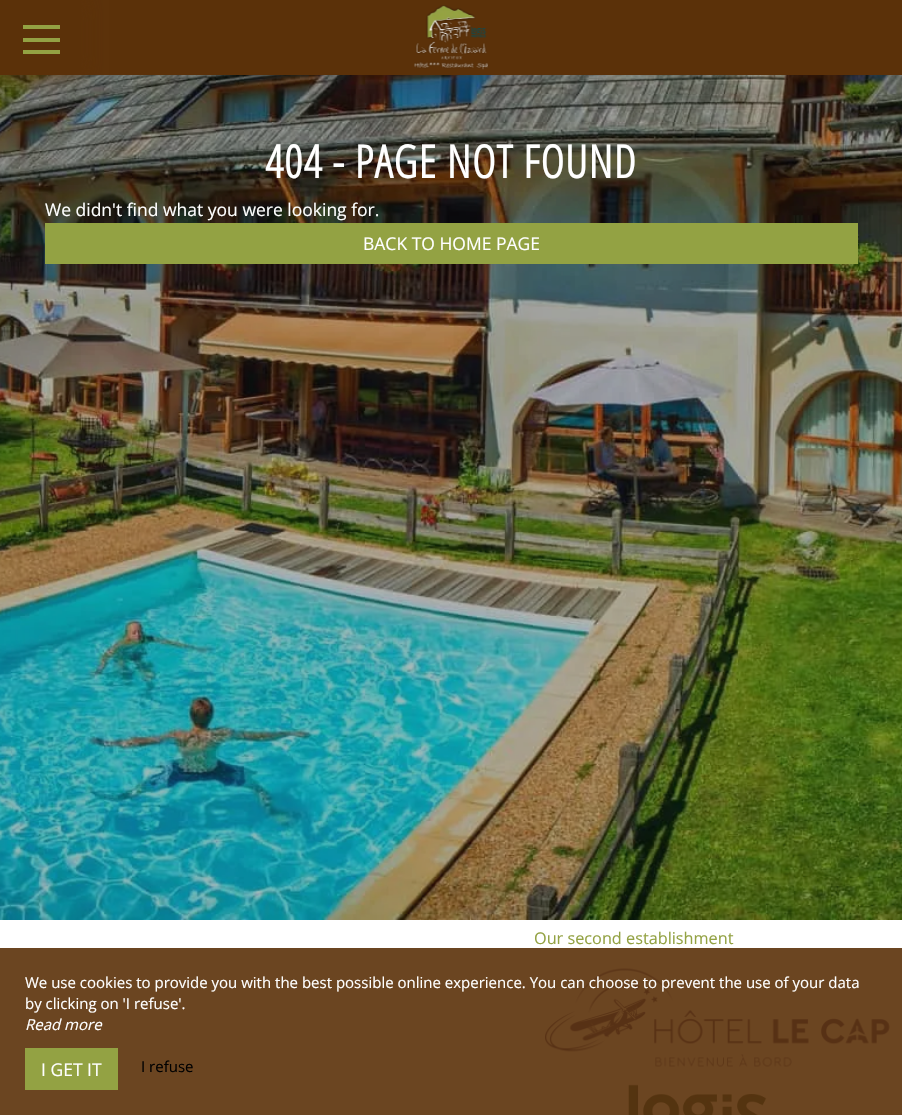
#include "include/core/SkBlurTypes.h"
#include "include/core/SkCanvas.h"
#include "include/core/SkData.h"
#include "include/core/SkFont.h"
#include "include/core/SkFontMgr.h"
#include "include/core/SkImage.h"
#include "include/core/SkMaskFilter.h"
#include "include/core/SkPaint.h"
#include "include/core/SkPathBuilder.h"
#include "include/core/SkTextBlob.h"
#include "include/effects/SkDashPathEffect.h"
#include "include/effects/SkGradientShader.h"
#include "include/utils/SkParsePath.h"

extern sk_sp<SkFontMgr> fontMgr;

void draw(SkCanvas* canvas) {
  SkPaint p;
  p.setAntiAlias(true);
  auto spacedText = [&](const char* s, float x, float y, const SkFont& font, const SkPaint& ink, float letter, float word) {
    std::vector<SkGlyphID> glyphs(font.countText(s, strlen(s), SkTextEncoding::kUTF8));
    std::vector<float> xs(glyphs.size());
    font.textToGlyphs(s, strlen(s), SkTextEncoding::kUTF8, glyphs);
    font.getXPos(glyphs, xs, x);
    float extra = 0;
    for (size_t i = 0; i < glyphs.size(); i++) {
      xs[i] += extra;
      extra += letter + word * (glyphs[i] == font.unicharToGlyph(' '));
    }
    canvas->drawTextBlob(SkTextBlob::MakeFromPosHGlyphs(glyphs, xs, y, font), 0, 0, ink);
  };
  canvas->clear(SK_ColorWHITE);
  p.setColor(SkColorSetRGB(91, 49, 9));
  canvas->drawRect(SkRect::MakeLTRB(0, 0, 902, 75), p);
  canvas->drawImageRect(SkImages::DeferredFromEncodedData(SkData::MakeFromFileName("images/1.png")), SkRect::MakeLTRB(414, 5, 489, 70), SkSamplingOptions());
  canvas->drawImageRect(SkImages::DeferredFromEncodedData(SkData::MakeFromFileName("images/2.png")), SkRect::MakeLTRB(0, 75, 902, 920), SkSamplingOptions());
  canvas->save();
  canvas->clipPath(SkPathBuilder(SkPathFillType::kEvenOdd).moveTo(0, 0).lineTo(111, 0).lineTo(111, 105).lineTo(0, 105).close().moveTo(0, 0).lineTo(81, 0).lineTo(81, 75).lineTo(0, 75).close().detach(), true);
  p.setColor(SkColorSetARGB(230, 91, 49, 9));
  p.setMaskFilter(SkMaskFilter::MakeBlur(kNormal_SkBlurStyle, 9.5f));
  canvas->drawRect(SkRect::MakeLTRB(0, 0, 81, 75), p);
  p.setMaskFilter(nullptr);
  canvas->restore();
  p.setColor(SkColorSetRGB(147, 162, 67));
  canvas->drawRect(SkRect::MakeLTRB(23, 25, 60, 29), p);
  canvas->drawRect(SkRect::MakeLTRB(23, 38, 60, 42), p);
  canvas->drawRect(SkRect::MakeLTRB(23, 50, 60, 54), p);
  canvas->drawRect(SkRect::MakeLTRB(45, 223, 858, 264), p);
  canvas->drawImageRect(SkImages::DeferredFromEncodedData(SkData::MakeFromFileName("images/3.png")), SkRect::MakeLTRB(544, 968, 890, 1067), SkSamplingOptions());
  canvas->drawImageRect(SkImages::DeferredFromEncodedData(SkData::MakeFromFileName("images/4.png")), SkRect::MakeLTRB(628, 1084, 767, 1115), SkSamplingOptions());
  p.setColor(SkColorSetARGB(230, 91, 49, 9));
  canvas->drawRect(SkRect::MakeLTRB(0, 948, 902, 1115), p);
  p.setColor(SkColorSetRGB(147, 162, 67));
  canvas->drawRect(SkRect::MakeLTRB(25, 1048, 118, 1090), p);
  SkFont font1(fontMgr->matchFamilyStyle("Open Sans Condensed", SkFontStyle::Bold()), 45);
  font1.setSubpixel(true);
  p.setColor(SK_ColorWHITE);
  spacedText("404 - PAGE NOT FOUND", 265, 178, font1, p, 1.25f, 0);
  SkFont font2(fontMgr->matchFamilyStyle("Open Sans", SkFontStyle::Normal()), 17.5f);
  font2.setSubpixel(true);
  canvas->drawString("We didn't find what you were looking for.", 45, 216, font2, p);
  canvas->drawString("BACK TO HOME PAGE", 363, 250, font2, p);
  SkFont font3(fontMgr->matchFamilyStyle("Open Sans", SkFontStyle::Normal()), 16.25f);
  font3.setSubpixel(true);
  p.setColor(SkColorSetRGB(147, 162, 67));
  canvas->drawString("Our second establishment", 534, 944, font3, p);
  SkFont font4(fontMgr->matchFamilyStyle("Open Sans", SkFontStyle::Normal()), 15);
  font4.setSubpixel(true);
  p.setColor(SK_ColorWHITE);
  canvas->drawString("We use cookies to provide you with the best possible online experience. You can choose to prevent the use of your data", 25, 988, font4, p);
  canvas->drawString("by clicking on 'I refuse'.", 25, 1009, font4, p);
  SkFont font5(fontMgr->matchFamilyStyle("Open Sans", SkFontStyle::Italic()), 15);
  font5.setSubpixel(true);
  canvas->drawString("Read more", 25, 1030, font5, p);
  canvas->drawString("I GET IT", 41, 1076, font2, p);
  p.setColor(SK_ColorBLACK);
  canvas->drawString("I refuse", 141, 1072, font4, p);
}
